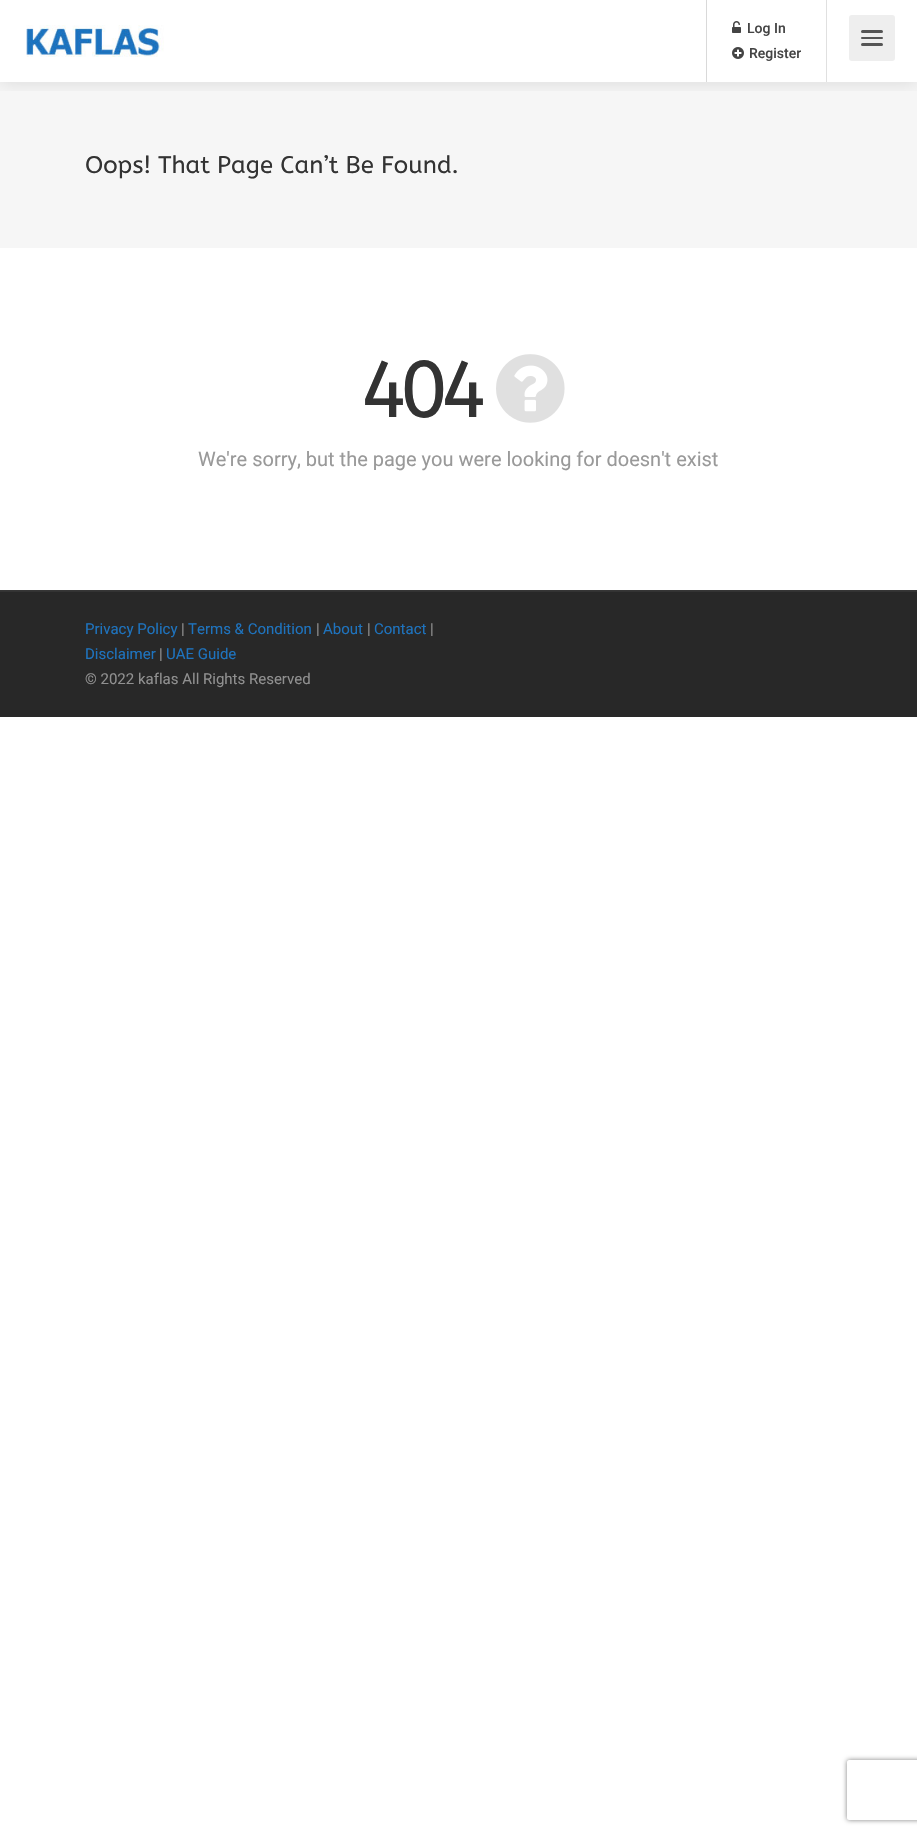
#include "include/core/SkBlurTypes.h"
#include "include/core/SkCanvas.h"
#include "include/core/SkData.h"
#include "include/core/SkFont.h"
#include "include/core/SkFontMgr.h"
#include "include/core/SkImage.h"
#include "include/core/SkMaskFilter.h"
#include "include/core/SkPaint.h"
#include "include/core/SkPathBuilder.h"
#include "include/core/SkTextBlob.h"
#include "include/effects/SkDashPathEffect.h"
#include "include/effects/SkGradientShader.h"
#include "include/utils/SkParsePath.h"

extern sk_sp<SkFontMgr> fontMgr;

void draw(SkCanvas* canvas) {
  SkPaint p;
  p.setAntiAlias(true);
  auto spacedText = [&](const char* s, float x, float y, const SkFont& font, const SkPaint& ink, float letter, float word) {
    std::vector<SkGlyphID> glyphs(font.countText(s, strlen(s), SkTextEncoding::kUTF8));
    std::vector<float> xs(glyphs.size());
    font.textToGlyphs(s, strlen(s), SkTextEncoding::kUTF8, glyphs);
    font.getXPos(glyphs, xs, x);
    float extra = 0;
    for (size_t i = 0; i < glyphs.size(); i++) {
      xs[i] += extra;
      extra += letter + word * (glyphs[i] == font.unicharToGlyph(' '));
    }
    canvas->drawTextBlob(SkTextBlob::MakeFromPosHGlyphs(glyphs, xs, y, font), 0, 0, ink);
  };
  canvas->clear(SK_ColorWHITE);
  p.setColor(SkColorSetRGB(246, 246, 246));
  canvas->drawRect(SkRect::MakeLTRB(0, 82, 917, 248), p);
  canvas->save();
  canvas->clipRect(SkRect::MakeLTRB(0, 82, 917, 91));
  p.setColor(SkColorSetARGB(31, 0, 0, 0));
  p.setMaskFilter(SkMaskFilter::MakeBlur(kNormal_SkBlurStyle, 9));
  canvas->drawRect(SkRect::MakeLTRB(0, 0, 917, 82), p);
  p.setMaskFilter(nullptr);
  canvas->restore();
  canvas->drawImageRect(SkImages::DeferredFromEncodedData(SkData::MakeFromFileName("images/1.png")), SkRect::MakeLTRB(26, 25, 164, 57), SkSamplingOptions());
  p.setColor(SkColorSetRGB(224, 224, 224));
  canvas->drawRect(SkRect::MakeLTRB(826, 0, 827, 82), p);
  p.setColor(SkColorSetRGB(217, 217, 217));
  canvas->drawRect(SkRect::MakeLTRB(706, 0, 707, 82), p);
  canvas->drawImageRect(SkImages::DeferredFromEncodedData(SkData::MakeFromFileName("images/2.png")), SkRect::MakeLTRB(732, 21, 741, 33), SkSamplingOptions());
  canvas->drawImageRect(SkImages::DeferredFromEncodedData(SkData::MakeFromFileName("images/3.png")), SkRect::MakeLTRB(732, 47, 744, 59), SkSamplingOptions());
  p.setColor(SkColorSetRGB(238, 238, 238));
  canvas->drawRoundRect(SkRect::MakeLTRB(849, 15, 895, 61), 3, 3, p);
  p.setColor(SkColorSetRGB(85, 85, 85));
  canvas->drawRoundRect(SkRect::MakeLTRB(861, 43, 883, 46), 1.5f, 1.5f, p);
  canvas->drawRoundRect(SkRect::MakeLTRB(861, 30, 883, 33), 1.5f, 1.5f, p);
  canvas->drawRoundRect(SkRect::MakeLTRB(861, 37, 883, 39), 1, 1, p);
  canvas->drawImageRect(SkImages::DeferredFromEncodedData(SkData::MakeFromFileName("images/4.png")), SkRect::MakeLTRB(496, 354, 565, 423), SkSamplingOptions());
  p.setColor(SkColorSetRGB(40, 40, 40));
  canvas->drawRect(SkRect::MakeLTRB(0, 592, 917, 717), p);
  p.setColor(SkColorSetRGB(54, 54, 54));
  canvas->drawRect(SkRect::MakeLTRB(0, 590, 917, 591), p);
  p.setColor(SkColorSetRGB(51, 51, 51));
  canvas->drawRect(SkRect::MakeLTRB(0, 591, 917, 592), p);
  canvas->save();
  canvas->clipPath(SkPathBuilder(SkPathFillType::kEvenOdd).moveTo(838, 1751).lineTo(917, 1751).lineTo(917, 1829).lineTo(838, 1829).close().moveTo(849, 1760).lineTo(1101, 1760).cubicTo(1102, 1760, 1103, 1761, 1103, 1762).lineTo(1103, 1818).cubicTo(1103, 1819, 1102, 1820, 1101, 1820).lineTo(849, 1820).cubicTo(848, 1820, 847, 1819, 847, 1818).lineTo(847, 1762).cubicTo(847, 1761, 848, 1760, 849, 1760).close().detach(), true);
  p.setColor(SkColorSetRGB(128, 128, 128));
  p.setMaskFilter(SkMaskFilter::MakeBlur(kNormal_SkBlurStyle, 2.5f));
  canvas->drawRoundRect(SkRect::MakeLTRB(847, 1760, 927, 1820), 2, 2, p);
  p.setMaskFilter(nullptr);
  canvas->restore();
  SkFont font1(fontMgr->matchFamilyStyle("Roboto", SkFontStyle(500, SkFontStyle::kNormal_Width, SkFontStyle::kUpright_Slant)), 14);
  font1.setSubpixel(true);
  p.setColor(SkColorSetRGB(68, 68, 68));
  canvas->drawString("Log In", 747, 33, font1, p);
  canvas->drawString("Register", 749, 58, font1, p);
  SkFont font2(fontMgr->matchFamilyStyle("ABeeZee", SkFontStyle::Normal()), 24);
  font2.setSubpixel(true);
  p.setColor(SkColorSetRGB(51, 51, 51));
  canvas->drawString("Oops! That Page Can’t Be Found.", 85, 173, font2, p);
  SkFont font3(fontMgr->matchFamilyStyle("ABeeZee", SkFontStyle::Normal()), 80);
  font3.setSubpixel(true);
  spacedText("404", 360, 417, font3, p, -8, 0);
  SkFont font4(fontMgr->matchFamilyStyle("Roboto", SkFontStyle::Normal()), 20);
  font4.setSubpixel(true);
  p.setColor(SkColorSetRGB(153, 153, 153));
  canvas->drawString("We're sorry, but the page you were looking for doesn't exist", 198, 466, font4, p);
  SkFont font5(fontMgr->matchFamilyStyle("Roboto", SkFontStyle::Normal()), 15);
  font5.setSubpixel(true);
  p.setColor(SkColorSetRGB(30, 115, 190));
  canvas->drawString("Privacy Policy", 85, 634, font5, p);
  p.setColor(SkColorSetRGB(144, 144, 144));
  canvas->drawString("|", 181, 634, font5, p);
  p.setColor(SkColorSetRGB(30, 115, 190));
  canvas->drawString("Terms & Condition", 188, 634, font5, p);
  p.setColor(SkColorSetRGB(144, 144, 144));
  canvas->drawString("|", 316, 634, font5, p);
  p.setColor(SkColorSetRGB(30, 115, 190));
  canvas->drawString("About", 323, 634, font5, p);
  p.setColor(SkColorSetRGB(144, 144, 144));
  canvas->drawString("|", 367, 634, font5, p);
  p.setColor(SkColorSetRGB(30, 115, 190));
  canvas->drawString("Contact", 374, 634, font5, p);
  p.setColor(SkColorSetRGB(144, 144, 144));
  canvas->drawString("|", 430, 634, font5, p);
  p.setColor(SkColorSetRGB(30, 115, 190));
  canvas->drawString("Disclaimer", 85, 659, font5, p);
  p.setColor(SkColorSetRGB(144, 144, 144));
  canvas->drawString("|", 159, 659, font5, p);
  p.setColor(SkColorSetRGB(30, 115, 190));
  canvas->drawString("UAE Guide", 166, 659, font5, p);
  p.setColor(SkColorSetRGB(144, 144, 144));
  canvas->drawString("© 2022 kaflas All Rights Reserved", 85, 684, font5, p);
}
